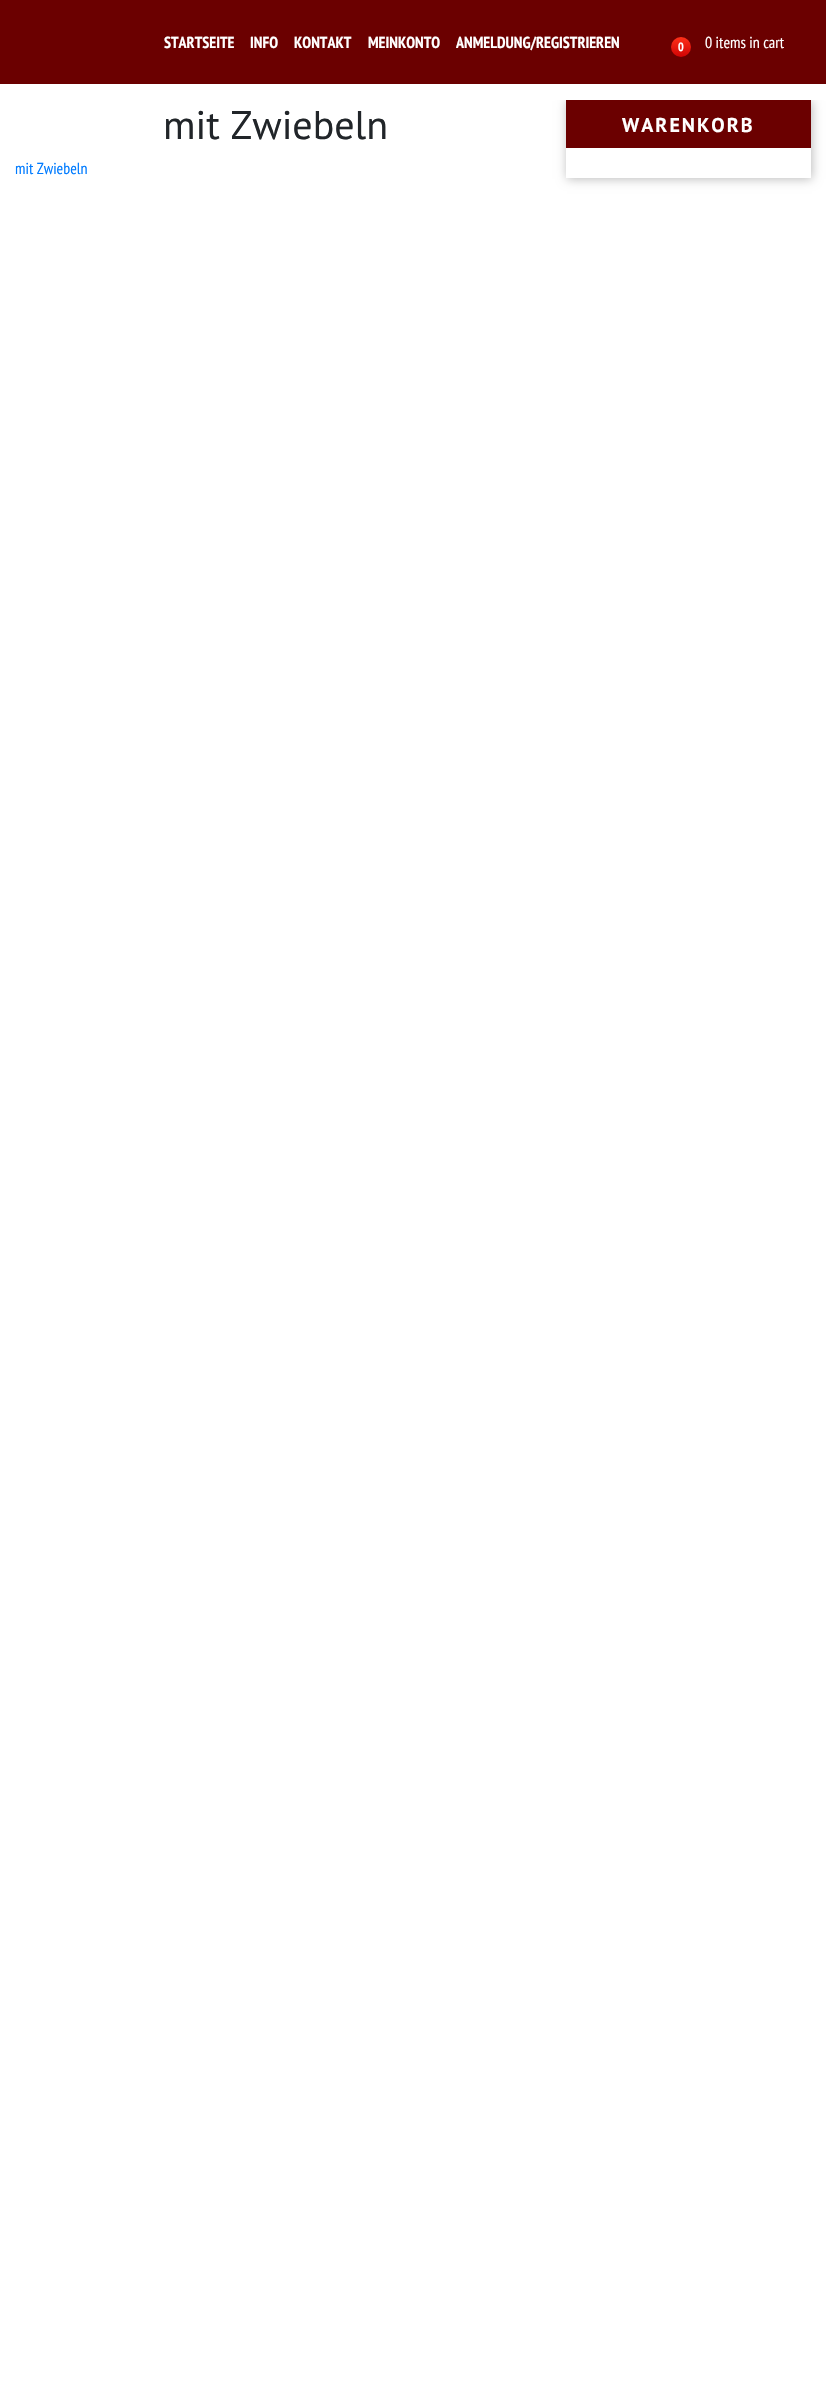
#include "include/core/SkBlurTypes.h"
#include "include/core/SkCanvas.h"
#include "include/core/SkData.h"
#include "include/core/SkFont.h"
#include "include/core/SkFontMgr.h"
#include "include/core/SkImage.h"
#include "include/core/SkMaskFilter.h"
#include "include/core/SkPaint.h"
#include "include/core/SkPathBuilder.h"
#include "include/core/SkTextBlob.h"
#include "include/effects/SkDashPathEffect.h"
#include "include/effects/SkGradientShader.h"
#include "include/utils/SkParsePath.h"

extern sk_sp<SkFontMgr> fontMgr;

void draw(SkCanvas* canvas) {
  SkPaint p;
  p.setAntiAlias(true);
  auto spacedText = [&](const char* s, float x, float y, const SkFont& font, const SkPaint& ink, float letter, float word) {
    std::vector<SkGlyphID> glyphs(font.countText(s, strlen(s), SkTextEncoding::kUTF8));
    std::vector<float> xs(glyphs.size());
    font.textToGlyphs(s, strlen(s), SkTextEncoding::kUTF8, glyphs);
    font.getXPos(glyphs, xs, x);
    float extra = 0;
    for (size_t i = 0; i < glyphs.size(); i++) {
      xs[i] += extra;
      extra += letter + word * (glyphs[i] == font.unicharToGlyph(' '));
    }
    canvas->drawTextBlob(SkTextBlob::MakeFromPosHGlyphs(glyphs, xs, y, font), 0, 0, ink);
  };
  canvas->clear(SK_ColorWHITE);
  p.setColor(SkColorSetRGB(107, 0, 0));
  canvas->drawRect(SkRect::MakeLTRB(0, 0, 826, 84), p);
  {
    const SkColor colors[] = {SkColorSetRGB(255, 48, 25), SkColorSetRGB(207, 4, 4)};
    const float stops[] = {0, 1};
    const SkPoint ends[] = {{681, 37}, {681, 57}};
    p.setShader(SkGradientShader::MakeLinear(ends, colors, stops, 2, SkTileMode::kClamp));
    p.setAlpha(255);
  }
  canvas->drawCircle(681, 47, 10, p);
  canvas->save();
  canvas->clipRect(SkRect::MakeLTRB(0, 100, 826, 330));
  canvas->clipPath(SkPathBuilder(SkPathFillType::kEvenOdd).moveTo(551, 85).lineTo(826, 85).lineTo(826, 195).lineTo(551, 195).close().moveTo(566, 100).lineTo(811, 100).lineTo(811, 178).lineTo(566, 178).close().detach(), true);
  p.setShader(nullptr);
  p.setColor(SkColorSetRGB(187, 187, 187));
  p.setMaskFilter(SkMaskFilter::MakeBlur(kNormal_SkBlurStyle, 5));
  canvas->drawRect(SkRect::MakeLTRB(567, 101, 812, 179), p);
  p.setMaskFilter(nullptr);
  canvas->restore();
  p.setColor(SkColorSetRGB(107, 0, 0));
  canvas->drawRect(SkRect::MakeLTRB(566, 100, 811, 148), p);
  SkFont font1(fontMgr->matchFamilyStyle("PT Sans Narrow", SkFontStyle::Bold()), 16);
  font1.setSubpixel(true);
  p.setColor(SK_ColorWHITE);
  canvas->drawString("STARTSEITE", 164, 48, font1, p);
  canvas->drawString("INFO", 250, 48, font1, p);
  canvas->drawString("KONTAKT", 294, 48, font1, p);
  canvas->drawString("MEINKONTO", 368, 48, font1, p);
  canvas->drawString("ANMELDUNG/REGISTRIEREN", 456, 48, font1, p);
  SkFont font2(fontMgr->matchFamilyStyle("PT Sans Narrow", SkFontStyle::Bold()), 12);
  font2.setSubpixel(true);
  canvas->drawString("0", 678, 51, font2, p);
  SkFont font3(fontMgr->matchFamilyStyle("PT Sans Narrow", SkFontStyle::Normal()), 16);
  font3.setSubpixel(true);
  canvas->drawString("0 items in cart", 705, 48, font3, p);
  SkFont font4(fontMgr->matchFamilyStyle("PT Sans", SkFontStyle::Normal()), 40);
  font4.setSubpixel(true);
  p.setColor(SkColorSetRGB(33, 37, 41));
  canvas->drawString("mit Zwiebeln", 163, 139, font4, p);
  p.setColor(SkColorSetRGB(0, 123, 255));
  canvas->drawString("mit Zwiebeln", 15, 174, font3, p);
  SkFont font5(fontMgr->matchFamilyStyle("PT Sans", SkFontStyle::Bold()), 20);
  font5.setSubpixel(true);
  p.setColor(SK_ColorWHITE);
  spacedText("WARENKORB", 622, 132, font5, p, 2, 0);
}
